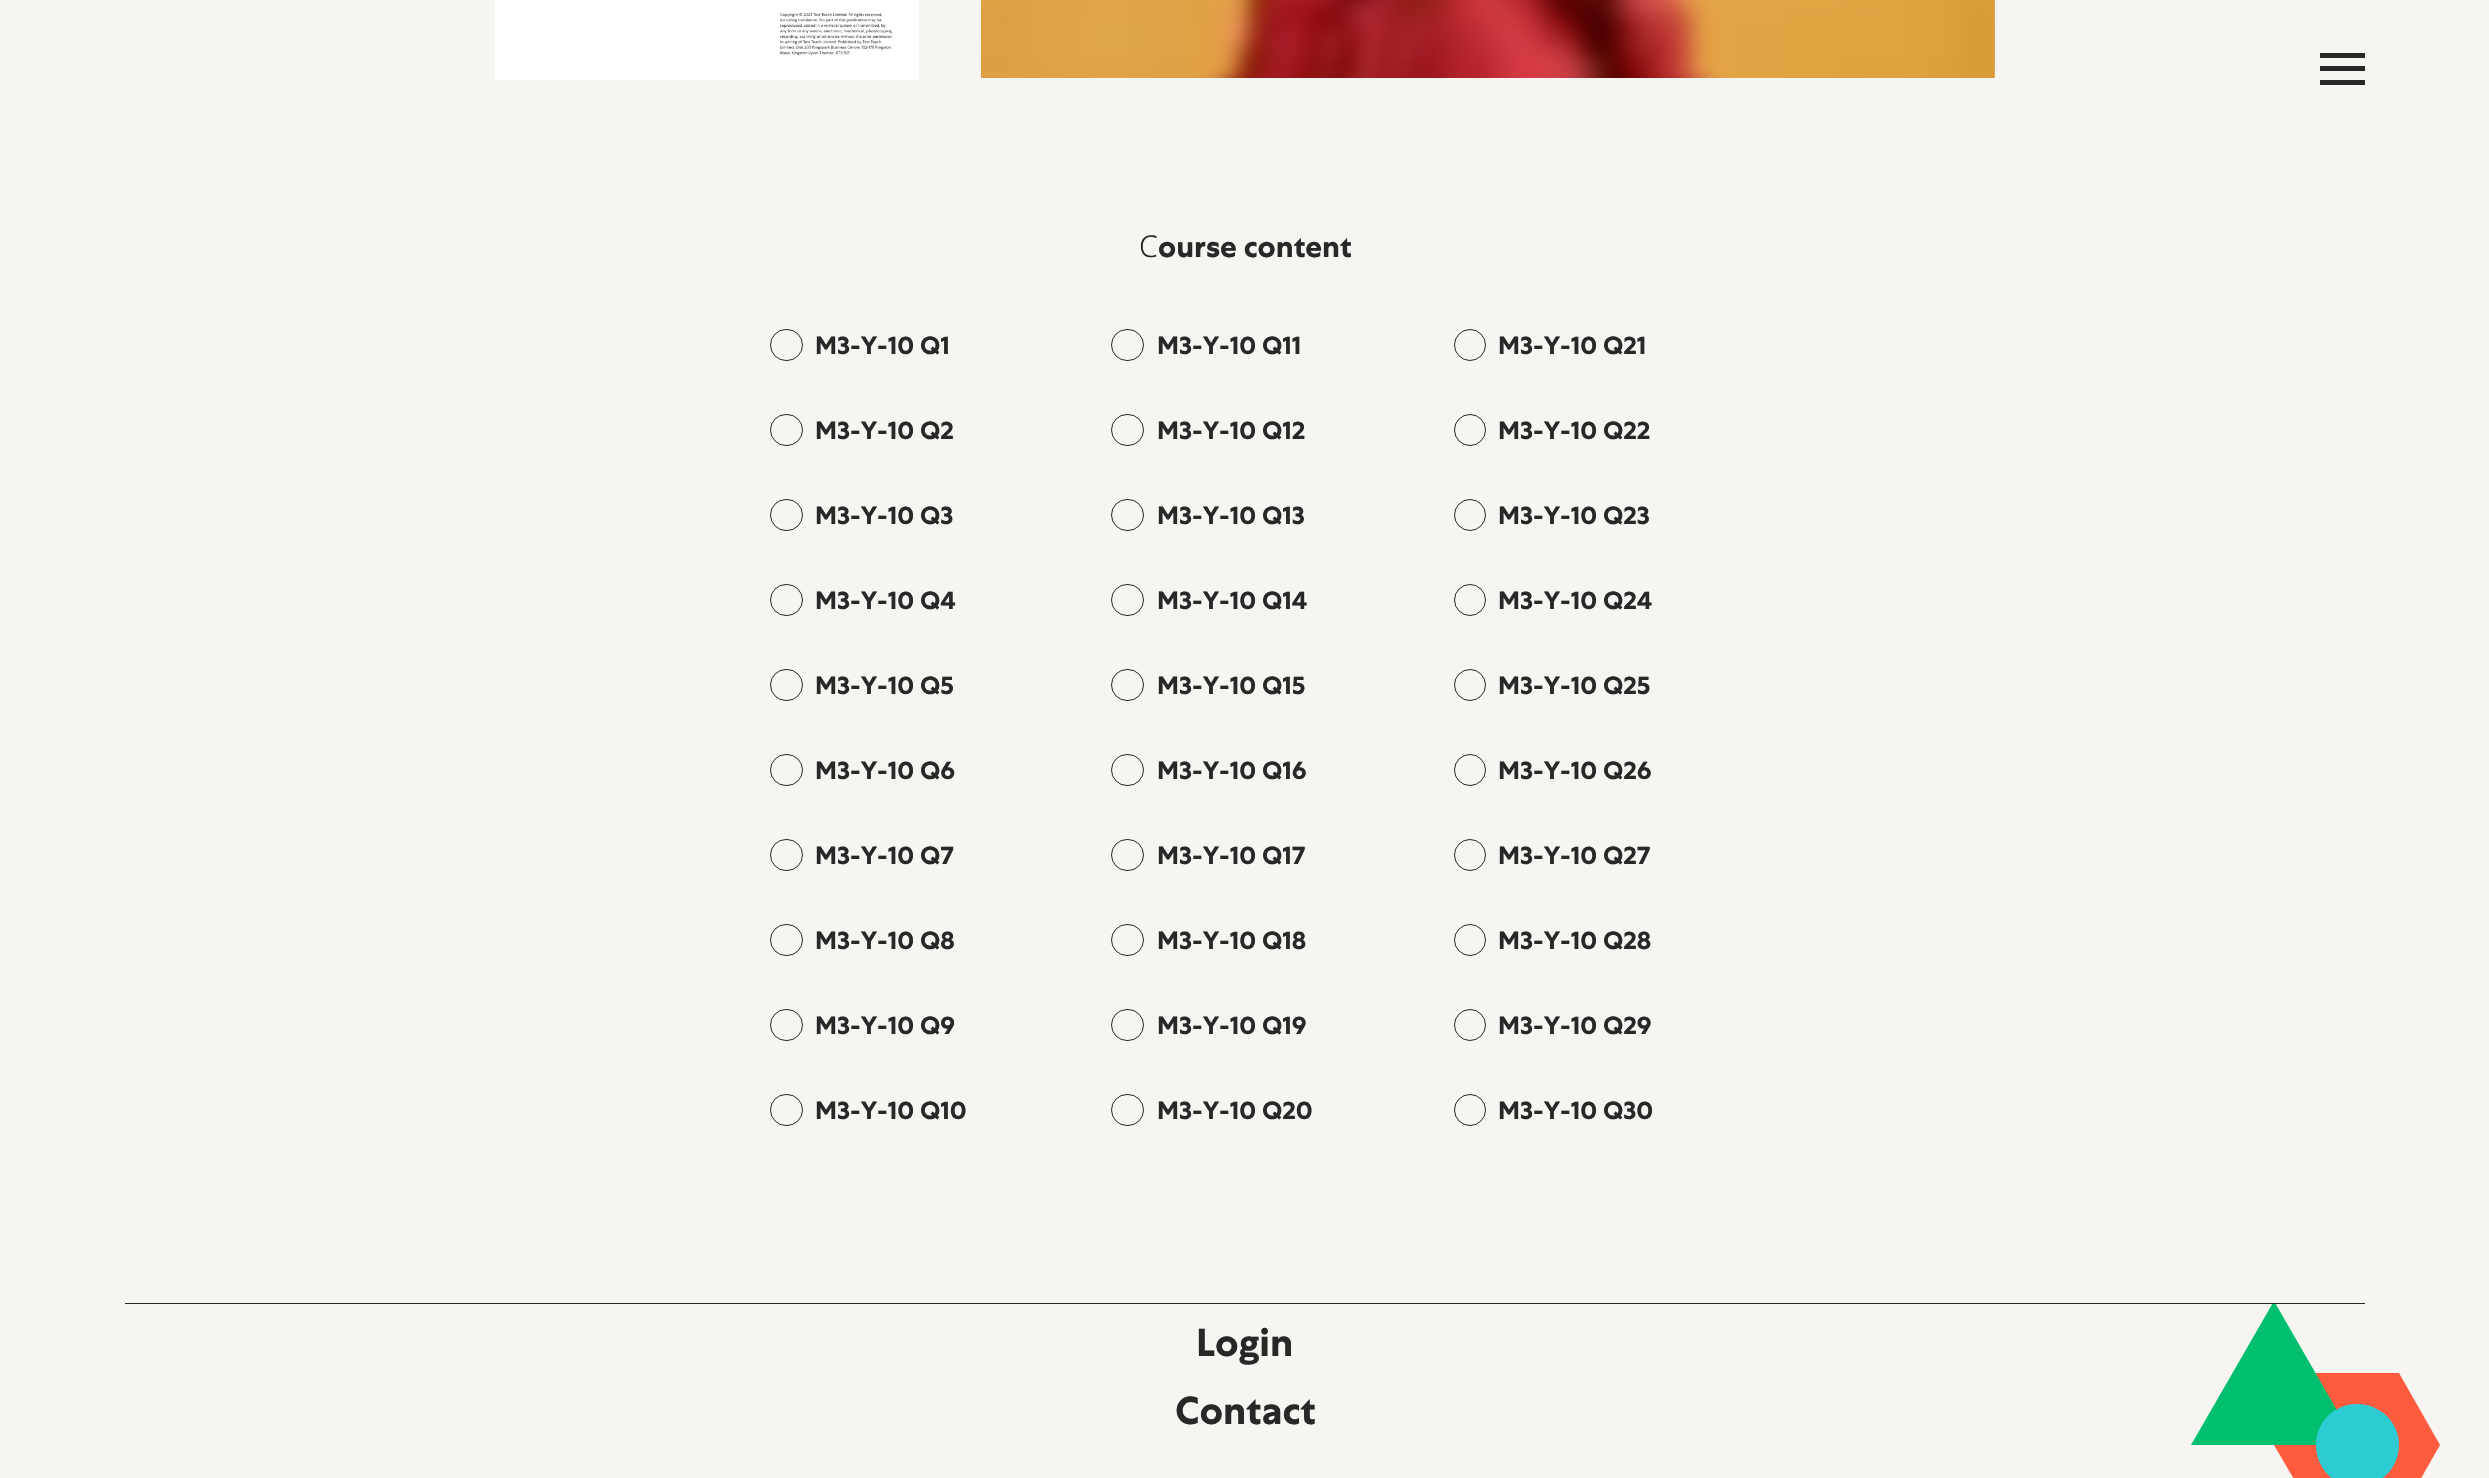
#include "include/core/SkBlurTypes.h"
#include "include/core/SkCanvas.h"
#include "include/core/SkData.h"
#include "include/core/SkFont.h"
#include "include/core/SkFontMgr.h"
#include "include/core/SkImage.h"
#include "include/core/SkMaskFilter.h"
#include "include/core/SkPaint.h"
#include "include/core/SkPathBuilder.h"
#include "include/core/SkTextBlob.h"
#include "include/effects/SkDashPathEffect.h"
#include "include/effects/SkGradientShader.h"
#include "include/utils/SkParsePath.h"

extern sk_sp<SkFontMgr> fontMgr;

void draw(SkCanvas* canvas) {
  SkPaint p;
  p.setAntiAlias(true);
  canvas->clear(SkColorSetRGB(247, 245, 242));
  canvas->drawImageRect(SkImages::DeferredFromEncodedData(SkData::MakeFromFileName("images/1.png")), SkRect::MakeLTRB(495, 0, 919, 80), SkSamplingOptions());
  canvas->drawImageRect(SkImages::DeferredFromEncodedData(SkData::MakeFromFileName("images/2.png")), SkRect::MakeLTRB(981, 0, 1995, 78), SkSamplingOptions());
  p.setColor(SkColorSetRGB(40, 40, 40));
  canvas->drawRect(SkRect::MakeLTRB(2320, 53, 2365, 58), p);
  canvas->drawRect(SkRect::MakeLTRB(2320, 66, 2365, 71), p);
  canvas->drawRect(SkRect::MakeLTRB(2320, 80, 2365, 85), p);
  p.setStyle(SkPaint::kStroke_Style);
  p.setStrokeWidth(1);
  canvas->drawRoundRect(SkRect::MakeLTRB(770.5f, 329.5f, 802.5f, 360.5f), 15.5f, 15.5f, p);
  canvas->drawRoundRect(SkRect::MakeLTRB(1111.5f, 329.5f, 1143.5f, 360.5f), 15.5f, 15.5f, p);
  canvas->drawCircle(1470, 345, 15.5f, p);
  canvas->drawRoundRect(SkRect::MakeLTRB(770.5f, 414.5f, 802.5f, 445.5f), 15.5f, 15.5f, p);
  canvas->drawRoundRect(SkRect::MakeLTRB(1111.5f, 414.5f, 1143.5f, 445.5f), 15.5f, 15.5f, p);
  canvas->drawCircle(1470, 430, 15.5f, p);
  canvas->drawRoundRect(SkRect::MakeLTRB(770.5f, 499.5f, 802.5f, 530.5f), 15.5f, 15.5f, p);
  canvas->drawRoundRect(SkRect::MakeLTRB(1111.5f, 499.5f, 1143.5f, 530.5f), 15.5f, 15.5f, p);
  canvas->drawCircle(1470, 515, 15.5f, p);
  canvas->drawRoundRect(SkRect::MakeLTRB(770.5f, 584.5f, 802.5f, 615.5f), 15.5f, 15.5f, p);
  canvas->drawRoundRect(SkRect::MakeLTRB(1111.5f, 584.5f, 1143.5f, 615.5f), 15.5f, 15.5f, p);
  canvas->drawCircle(1470, 600, 15.5f, p);
  canvas->drawRoundRect(SkRect::MakeLTRB(770.5f, 669.5f, 802.5f, 700.5f), 15.5f, 15.5f, p);
  canvas->drawRoundRect(SkRect::MakeLTRB(1111.5f, 669.5f, 1143.5f, 700.5f), 15.5f, 15.5f, p);
  canvas->drawCircle(1470, 685, 15.5f, p);
  canvas->drawRoundRect(SkRect::MakeLTRB(770.5f, 754.5f, 802.5f, 785.5f), 15.5f, 15.5f, p);
  canvas->drawRoundRect(SkRect::MakeLTRB(1111.5f, 754.5f, 1143.5f, 785.5f), 15.5f, 15.5f, p);
  canvas->drawCircle(1470, 770, 15.5f, p);
  canvas->drawRoundRect(SkRect::MakeLTRB(770.5f, 839.5f, 802.5f, 870.5f), 15.5f, 15.5f, p);
  canvas->drawRoundRect(SkRect::MakeLTRB(1111.5f, 839.5f, 1143.5f, 870.5f), 15.5f, 15.5f, p);
  canvas->drawCircle(1470, 855, 15.5f, p);
  canvas->drawRoundRect(SkRect::MakeLTRB(770.5f, 924.5f, 802.5f, 955.5f), 15.5f, 15.5f, p);
  canvas->drawRoundRect(SkRect::MakeLTRB(1111.5f, 924.5f, 1143.5f, 955.5f), 15.5f, 15.5f, p);
  canvas->drawCircle(1470, 940, 15.5f, p);
  canvas->drawRoundRect(SkRect::MakeLTRB(770.5f, 1009.5f, 802.5f, 1040.5f), 15.5f, 15.5f, p);
  canvas->drawRoundRect(SkRect::MakeLTRB(1111.5f, 1009.5f, 1143.5f, 1040.5f), 15.5f, 15.5f, p);
  canvas->drawCircle(1470, 1025, 15.5f, p);
  canvas->drawRoundRect(SkRect::MakeLTRB(770.5f, 1094.5f, 802.5f, 1125.5f), 15.5f, 15.5f, p);
  canvas->drawRoundRect(SkRect::MakeLTRB(1111.5f, 1094.5f, 1143.5f, 1125.5f), 15.5f, 15.5f, p);
  canvas->drawCircle(1470, 1110, 15.5f, p);
  p.setStyle(SkPaint::kFill_Style);
  p.setColor(SkColorSetRGB(255, 92, 62));
  canvas->drawPath(SkPathBuilder().moveTo(2399, 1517).lineTo(2316, 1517).lineTo(2274, 1445).lineTo(2316, 1373).lineTo(2399, 1373).lineTo(2440, 1445).lineTo(2399, 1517).detach(), p);
  canvas->save();
  canvas->clipRect(SkRect::MakeLTRB(0, 1303, 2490, 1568));
  p.setColor(SkColorSetRGB(0, 191, 111));
  canvas->drawPath(SkPathBuilder().moveTo(2274, 1445).lineTo(2357, 1445).lineTo(2274, 1301).lineTo(2191, 1445).lineTo(2274, 1445).detach(), p);
  canvas->restore();
  p.setColor(SkColorSetRGB(40, 40, 40));
  canvas->drawRect(SkRect::MakeLTRB(125, 1303, 2365, 1304), p);
  p.setColor(SkColorSetRGB(45, 204, 211));
  canvas->drawPath(SkPathBuilder().moveTo(2399, 1445).cubicTo(2399, 1422, 2380, 1404, 2357, 1404).cubicTo(2334, 1404, 2316, 1422, 2316, 1445).cubicTo(2316, 1468, 2334, 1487, 2357, 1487).cubicTo(2380, 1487, 2399, 1468, 2399, 1445).detach(), p);
  SkFont font1(fontMgr->matchFamilyStyle("Noto Sans", SkFontStyle(300, SkFontStyle::kNormal_Width, SkFontStyle::kUpright_Slant)), 30);
  font1.setSubpixel(true);
  p.setColor(SkColorSetRGB(40, 40, 40));
  canvas->drawString("C", 1139, 257, font1, p);
  SkFont font2(fontMgr->matchFamilyStyle("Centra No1", SkFontStyle::Bold()), 30);
  font2.setSubpixel(true);
  canvas->drawString("ourse content", 1158, 257, font2, p);
  SkFont font3(fontMgr->matchFamilyStyle("Centra No1", SkFontStyle::Bold()), 25);
  font3.setSubpixel(true);
  canvas->drawString("M3-Y-10 Q1", 815, 354, font3, p);
  canvas->drawString("M3-Y-10 Q11", 1157, 354, font3, p);
  canvas->drawString("M3-Y-10 Q21", 1498, 354, font3, p);
  canvas->drawString("M3-Y-10 Q2", 815, 439, font3, p);
  canvas->drawString("M3-Y-10 Q12", 1157, 439, font3, p);
  canvas->drawString("M3-Y-10 Q22", 1498, 439, font3, p);
  canvas->drawString("M3-Y-10 Q3", 815, 524, font3, p);
  canvas->drawString("M3-Y-10 Q13", 1157, 524, font3, p);
  canvas->drawString("M3-Y-10 Q23", 1498, 524, font3, p);
  canvas->drawString("M3-Y-10 Q4", 815, 609, font3, p);
  canvas->drawString("M3-Y-10 Q14", 1157, 609, font3, p);
  canvas->drawString("M3-Y-10 Q24", 1498, 609, font3, p);
  canvas->drawString("M3-Y-10 Q5", 815, 694, font3, p);
  canvas->drawString("M3-Y-10 Q15", 1157, 694, font3, p);
  canvas->drawString("M3-Y-10 Q25", 1498, 694, font3, p);
  canvas->drawString("M3-Y-10 Q6", 815, 779, font3, p);
  canvas->drawString("M3-Y-10 Q16", 1157, 779, font3, p);
  canvas->drawString("M3-Y-10 Q26", 1498, 779, font3, p);
  canvas->drawString("M3-Y-10 Q7", 815, 864, font3, p);
  canvas->drawString("M3-Y-10 Q17", 1157, 864, font3, p);
  canvas->drawString("M3-Y-10 Q27", 1498, 864, font3, p);
  canvas->drawString("M3-Y-10 Q8", 815, 949, font3, p);
  canvas->drawString("M3-Y-10 Q18", 1157, 949, font3, p);
  canvas->drawString("M3-Y-10 Q28", 1498, 949, font3, p);
  canvas->drawString("M3-Y-10 Q9", 815, 1034, font3, p);
  canvas->drawString("M3-Y-10 Q19", 1157, 1034, font3, p);
  canvas->drawString("M3-Y-10 Q29", 1498, 1034, font3, p);
  canvas->drawString("M3-Y-10 Q10", 815, 1119, font3, p);
  canvas->drawString("M3-Y-10 Q20", 1157, 1119, font3, p);
  canvas->drawString("M3-Y-10 Q30", 1498, 1119, font3, p);
  SkFont font4(fontMgr->matchFamilyStyle("Centra No1", SkFontStyle::Bold()), 39);
  font4.setSubpixel(true);
  canvas->drawString("Login", 1196, 1356, font4, p);
  canvas->drawString("Contact", 1175, 1424, font4, p);
}
